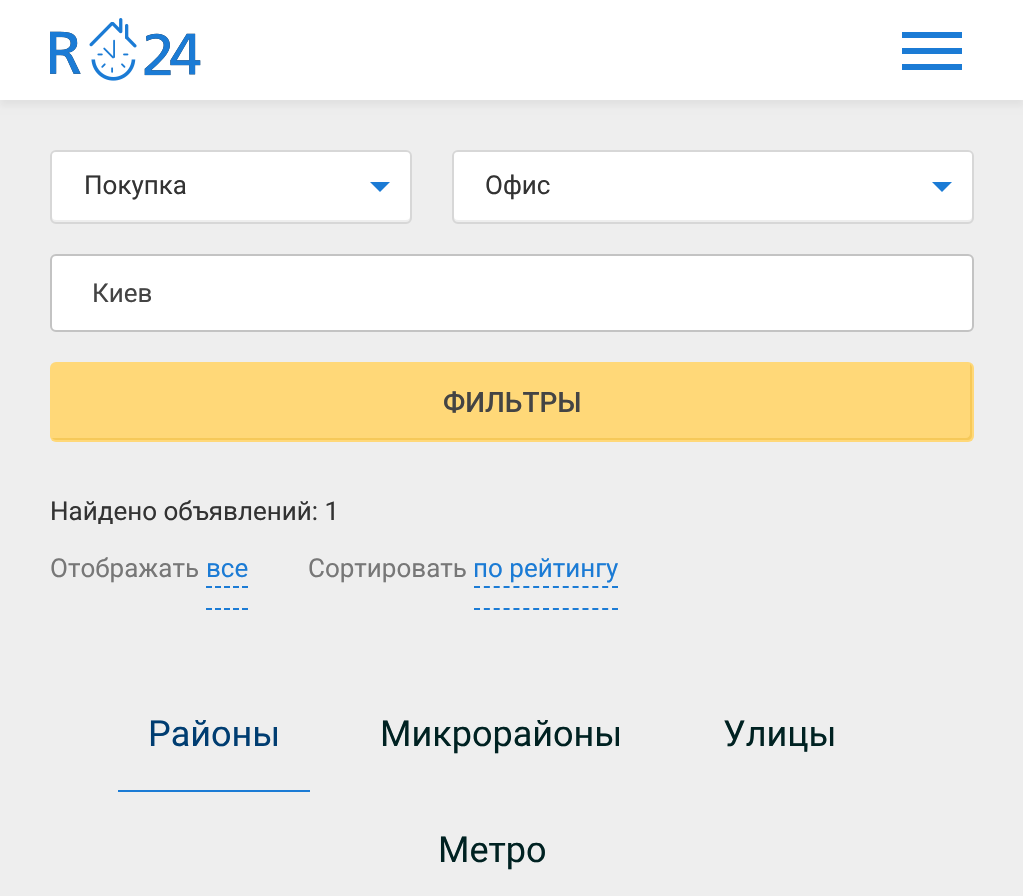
#include "include/core/SkBlurTypes.h"
#include "include/core/SkCanvas.h"
#include "include/core/SkData.h"
#include "include/core/SkFont.h"
#include "include/core/SkFontMgr.h"
#include "include/core/SkImage.h"
#include "include/core/SkMaskFilter.h"
#include "include/core/SkPaint.h"
#include "include/core/SkPathBuilder.h"
#include "include/core/SkTextBlob.h"
#include "include/effects/SkDashPathEffect.h"
#include "include/effects/SkGradientShader.h"
#include "include/utils/SkParsePath.h"

extern sk_sp<SkFontMgr> fontMgr;

void draw(SkCanvas* canvas) {
  SkPaint p;
  p.setAntiAlias(true);
  canvas->clear(SkColorSetRGB(238, 238, 238));
  p.setColor(SkColorSetARGB(13, 0, 0, 0));
  p.setMaskFilter(SkMaskFilter::MakeBlur(kNormal_SkBlurStyle, 3));
  canvas->drawRect(SkRect::MakeLTRB(0, 6, 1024, 106), p);
  p.setMaskFilter(nullptr);
  p.setColor(SK_ColorWHITE);
  canvas->drawRect(SkRect::MakeLTRB(0, 0, 1023, 100), p);
  canvas->drawImageRect(SkImages::DeferredFromEncodedData(SkData::MakeFromFileName("images/1.png")), SkRect::MakeLTRB(50, 18, 201, 81), SkSamplingOptions());
  p.setColor(SkColorSetRGB(27, 123, 213));
  canvas->drawRect(SkRect::MakeLTRB(902, 32, 962, 38), p);
  canvas->drawRect(SkRect::MakeLTRB(902, 48, 962, 54), p);
  canvas->drawRect(SkRect::MakeLTRB(902, 64, 962, 70), p);
  p.setStyle(SkPaint::kStroke_Style);
  p.setStrokeWidth(2);
  p.setColor(SkColorSetRGB(215, 215, 215));
  canvas->drawRoundRect(SkRect::MakeLTRB(51, 151, 411, 223), 5, 5, p);
  p.setStyle(SkPaint::kFill_Style);
  p.setColor(SK_ColorWHITE);
  canvas->drawRoundRect(SkRect::MakeLTRB(52, 152, 410, 220), 4, 4, p);
  p.setColor(SkColorSetRGB(27, 123, 213));
  canvas->drawPath(SkPathBuilder().moveTo(370, 182).lineTo(390, 182).lineTo(380, 192).close().detach(), p);
  p.setStyle(SkPaint::kStroke_Style);
  p.setColor(SkColorSetRGB(215, 215, 215));
  canvas->drawRoundRect(SkRect::MakeLTRB(453, 151, 973, 223), 5, 5, p);
  p.setStyle(SkPaint::kFill_Style);
  p.setColor(SK_ColorWHITE);
  canvas->drawRoundRect(SkRect::MakeLTRB(454, 152, 972, 220), 4, 4, p);
  p.setColor(SkColorSetRGB(27, 123, 213));
  canvas->drawPath(SkPathBuilder().moveTo(932, 182).lineTo(952, 182).lineTo(942, 192).close().detach(), p);
  p.setColor(SK_ColorWHITE);
  canvas->drawRoundRect(SkRect::MakeLTRB(51, 255, 973, 331), 5, 5, p);
  p.setStyle(SkPaint::kStroke_Style);
  p.setColor(SkColorSetRGB(195, 195, 195));
  canvas->drawRoundRect(SkRect::MakeLTRB(51, 255, 973, 331), 5, 5, p);
  p.setStyle(SkPaint::kFill_Style);
  p.setColor(SkColorSetRGB(255, 216, 120));
  canvas->drawRoundRect(SkRect::MakeLTRB(50, 362, 974, 442), 6, 6, p);
  p.setColor(SkColorSetRGB(246, 201, 89));
  canvas->drawPath(SkPathBuilder().moveTo(52, 438).cubicTo(53, 439, 54, 440, 56, 440).lineTo(968, 440).cubicTo(970, 440, 972, 438, 972, 436).lineTo(972, 368).cubicTo(972, 366, 971, 365, 970, 364).lineTo(970, 366).lineTo(970, 434).cubicTo(970, 436, 968, 438, 966, 438).lineTo(54, 438).close().detach(), p);
  p.setStyle(SkPaint::kStroke_Style);
  p.setColor(SkColorSetRGB(27, 123, 213));
  p.setPathEffect(SkDashPathEffect::Make({{6, 3}}, 0));
  canvas->drawPath(SkPathBuilder().moveTo(206, 609).lineTo(248, 609).moveTo(206, 587).lineTo(248, 587).detach(), p);
  p.setPathEffect(nullptr);
  p.setPathEffect(SkDashPathEffect::Make({{6, 3.86f}}, 0));
  canvas->drawPath(SkPathBuilder().moveTo(474, 609).lineTo(618, 609).detach(), p);
  p.setPathEffect(nullptr);
  p.setPathEffect(SkDashPathEffect::Make({{6, 3.86f}}, 0));
  canvas->drawPath(SkPathBuilder().moveTo(474, 587).lineTo(618, 587).detach(), p);
  p.setPathEffect(nullptr);
  p.setStyle(SkPaint::kFill_Style);
  canvas->drawRect(SkRect::MakeLTRB(118, 790, 310, 792), p);
  SkFont font1(fontMgr->matchFamilyStyle("Roboto", SkFontStyle::Normal()), 26);
  font1.setSubpixel(true);
  p.setColor(SkColorSetRGB(51, 51, 51));
  canvas->drawString("Покупка", 84, 194, font1, p);
  canvas->drawString("Офис", 485, 194, font1, p);
  p.setColor(SkColorSetRGB(68, 68, 68));
  canvas->drawString("Киев", 92, 302, font1, p);
  SkFont font2(fontMgr->matchFamilyStyle("Roboto", SkFontStyle(500, SkFontStyle::kNormal_Width, SkFontStyle::kUpright_Slant)), 28);
  font2.setSubpixel(true);
  canvas->drawString("ФИЛЬТРЫ", 443, 412, font2, p);
  p.setColor(SkColorSetRGB(51, 51, 51));
  canvas->drawString("Найдено объявлений: 1", 50, 520, font1, p);
  p.setColor(SkColorSetRGB(119, 119, 119));
  canvas->drawString("Отображать", 50, 577, font1, p);
  p.setColor(SkColorSetRGB(27, 123, 213));
  canvas->drawString("все", 206, 577, font1, p);
  p.setColor(SkColorSetRGB(119, 119, 119));
  canvas->drawString("Сортировать", 308, 577, font1, p);
  p.setColor(SkColorSetRGB(27, 123, 213));
  canvas->drawString("по рейтингу", 473, 577, font1, p);
  SkFont font3(fontMgr->matchFamilyStyle("Roboto", SkFontStyle::Normal()), 36);
  font3.setSubpixel(true);
  p.setColor(SkColorSetRGB(0, 61, 113));
  canvas->drawString("Районы", 148, 746, font3, p);
  p.setColor(SkColorSetRGB(0, 34, 34));
  canvas->drawString("Микрорайоны", 380, 746, font3, p);
  canvas->drawString("Улицы", 723, 746, font3, p);
  canvas->drawString("Метро", 438, 862, font3, p);
}
